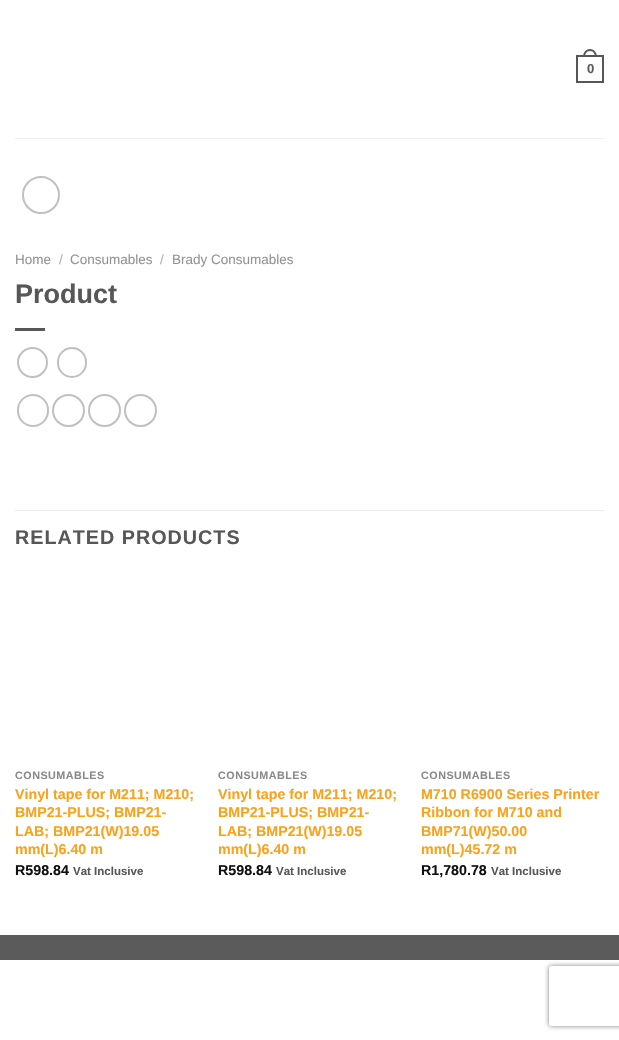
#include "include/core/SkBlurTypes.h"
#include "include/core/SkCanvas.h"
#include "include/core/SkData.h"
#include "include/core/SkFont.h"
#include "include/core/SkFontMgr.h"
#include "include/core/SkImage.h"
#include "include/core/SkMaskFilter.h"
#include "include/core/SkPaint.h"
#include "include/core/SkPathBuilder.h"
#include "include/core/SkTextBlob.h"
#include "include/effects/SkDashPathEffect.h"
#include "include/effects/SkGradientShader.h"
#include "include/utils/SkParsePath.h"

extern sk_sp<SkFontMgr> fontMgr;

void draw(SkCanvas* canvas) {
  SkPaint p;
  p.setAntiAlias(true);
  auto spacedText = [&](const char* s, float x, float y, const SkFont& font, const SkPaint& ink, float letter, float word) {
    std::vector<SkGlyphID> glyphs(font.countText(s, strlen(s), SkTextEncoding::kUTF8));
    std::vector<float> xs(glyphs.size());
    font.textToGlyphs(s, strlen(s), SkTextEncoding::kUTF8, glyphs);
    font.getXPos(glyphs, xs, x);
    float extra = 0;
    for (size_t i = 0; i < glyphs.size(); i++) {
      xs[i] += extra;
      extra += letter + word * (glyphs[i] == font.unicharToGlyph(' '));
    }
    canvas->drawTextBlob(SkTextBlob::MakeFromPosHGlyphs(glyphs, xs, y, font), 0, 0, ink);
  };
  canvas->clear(SK_ColorWHITE);
  p.setStyle(SkPaint::kStroke_Style);
  p.setStrokeWidth(2);
  p.setColor(SkColorSetRGB(86, 86, 86));
  canvas->drawRect(SkRect::MakeLTRB(577, 56, 603, 82), p);
  p.setStyle(SkPaint::kFill_Style);
  canvas->drawPath(SkPathBuilder(SkPathFillType::kEvenOdd).moveTo(590, 49).cubicTo(594.5f, 49, 597, 53, 597, 57).lineTo(583, 57).cubicTo(583, 53, 585.5f, 49, 590, 49).close().moveTo(590, 51).cubicTo(593.5f, 51, 595, 54, 595, 57).lineTo(585, 57).cubicTo(585, 54, 586.5f, 51, 590, 51).close().detach(), p);
  p.setColor(SkColorSetRGB(238, 238, 238));
  canvas->drawRect(SkRect::MakeLTRB(15, 138, 604, 139), p);
  p.setStyle(SkPaint::kStroke_Style);
  p.setColor(SkColorSetRGB(192, 192, 192));
  canvas->drawCircle(41, 195, 18, p);
  p.setStyle(SkPaint::kFill_Style);
  p.setColor(SkColorSetRGB(87, 87, 87));
  canvas->drawRect(SkRect::MakeLTRB(15, 328, 45, 331), p);
  p.setStyle(SkPaint::kStroke_Style);
  p.setColor(SkColorSetRGB(192, 192, 192));
  canvas->drawCircle(32.5f, 362.5f, 14.5f, p);
  canvas->drawRoundRect(SkRect::MakeLTRB(58, 348, 86, 377), 14, 14, p);
  canvas->drawRoundRect(SkRect::MakeLTRB(18, 395, 48, 426), 15, 15, p);
  canvas->drawCircle(68.5f, 410.5f, 15.5f, p);
  canvas->drawCircle(104.5f, 410.5f, 15.5f, p);
  canvas->drawCircle(140.5f, 410.5f, 15.5f, p);
  p.setStyle(SkPaint::kFill_Style);
  p.setColor(SkColorSetRGB(236, 236, 236));
  canvas->drawRect(SkRect::MakeLTRB(15, 510, 604, 511), p);
  p.setColor(SkColorSetRGB(91, 91, 91));
  canvas->drawRect(SkRect::MakeLTRB(0, 935, 619, 960), p);
  canvas->save();
  canvas->clipPath(SkPathBuilder(SkPathFillType::kEvenOdd).moveTo(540, 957).lineTo(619, 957).lineTo(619, 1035).lineTo(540, 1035).close().moveTo(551, 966).lineTo(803, 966).cubicTo(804, 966, 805, 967, 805, 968).lineTo(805, 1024).cubicTo(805, 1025, 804, 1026, 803, 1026).lineTo(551, 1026).cubicTo(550, 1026, 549, 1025, 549, 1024).lineTo(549, 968).cubicTo(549, 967, 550, 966, 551, 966).close().detach(), true);
  p.setColor(SkColorSetRGB(128, 128, 128));
  p.setMaskFilter(SkMaskFilter::MakeBlur(kNormal_SkBlurStyle, 2.5f));
  canvas->drawRoundRect(SkRect::MakeLTRB(549, 966, 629, 1026), 2, 2, p);
  p.setMaskFilter(nullptr);
  canvas->restore();
  SkFont font1(fontMgr->matchFamilyStyle("Liberation Sans", SkFontStyle::Bold()), 13);
  font1.setSubpixel(true);
  p.setColor(SkColorSetRGB(87, 87, 87));
  canvas->drawString("0", 587, 73, font1, p);
  SkFont font2(fontMgr->matchFamilyStyle("Liberation Sans", SkFontStyle::Normal()), 13.5f);
  font2.setSubpixel(true);
  p.setColor(SkColorSetRGB(148, 148, 148));
  canvas->drawString("Home", 15, 264, font2, p);
  p.setColor(SkColorSetRGB(178, 178, 178));
  canvas->drawString("/", 59, 264, font2, p);
  p.setColor(SkColorSetRGB(148, 148, 148));
  canvas->drawString("Consumables", 70, 264, font2, p);
  p.setColor(SkColorSetRGB(178, 178, 178));
  canvas->drawString("/", 160, 264, font2, p);
  p.setColor(SkColorSetRGB(148, 148, 148));
  canvas->drawString("Brady Consumables", 172, 264, font2, p);
  SkFont font3(fontMgr->matchFamilyStyle("Liberation Sans", SkFontStyle::Bold()), 27);
  font3.setSubpixel(true);
  p.setColor(SkColorSetRGB(87, 87, 87));
  canvas->drawString("Product", 15, 303, font3, p);
  SkFont font4(fontMgr->matchFamilyStyle("Liberation Sans", SkFontStyle::Bold()), 19.75f);
  font4.setSubpixel(true);
  spacedText("RELATED PRODUCTS", 15, 544, font4, p, 1, 0);
  SkFont font5(fontMgr->matchFamilyStyle("Liberation Sans", SkFontStyle::Bold()), 10.75f);
  font5.setSubpixel(true);
  p.setColor(SkColorSetRGB(137, 137, 137));
  spacedText("CONSUMABLES", 15, 779, font5, p, 0.5f, 0);
  SkFont font6(fontMgr->matchFamilyStyle("Liberation Sans", SkFontStyle::Bold()), 14.25f);
  font6.setSubpixel(true);
  p.setColor(SkColorSetRGB(250, 162, 28));
  canvas->drawString("Vinyl tape for M211; M210;", 15, 799, font6, p);
  canvas->drawString("BMP21-PLUS; BMP21-", 15, 817, font6, p);
  canvas->drawString("LAB; BMP21(W)19.05", 15, 836, font6, p);
  canvas->drawString("mm(L)6.40 m", 15, 854, font6, p);
  p.setColor(SkColorSetRGB(17, 17, 17));
  canvas->drawString("R598.84", 15, 875, font6, p);
  SkFont font7(fontMgr->matchFamilyStyle("Liberation Sans", SkFontStyle::Bold()), 11.5f);
  font7.setSubpixel(true);
  p.setColor(SkColorSetRGB(87, 87, 87));
  canvas->drawString("Vat Inclusive", 73, 875, font7, p);
  p.setColor(SkColorSetRGB(137, 137, 137));
  spacedText("CONSUMABLES", 218, 779, font5, p, 0.5f, 0);
  p.setColor(SkColorSetRGB(250, 162, 28));
  canvas->drawString("Vinyl tape for M211; M210;", 218, 799, font6, p);
  canvas->drawString("BMP21-PLUS; BMP21-", 218, 817, font6, p);
  canvas->drawString("LAB; BMP21(W)19.05", 218, 836, font6, p);
  canvas->drawString("mm(L)6.40 m", 218, 854, font6, p);
  p.setColor(SkColorSetRGB(17, 17, 17));
  canvas->drawString("R598.84", 218, 875, font6, p);
  p.setColor(SkColorSetRGB(87, 87, 87));
  canvas->drawString("Vat Inclusive", 276, 875, font7, p);
  p.setColor(SkColorSetRGB(137, 137, 137));
  spacedText("CONSUMABLES", 421, 779, font5, p, 0.5f, 0);
  p.setColor(SkColorSetRGB(250, 162, 28));
  canvas->drawString("M710 R6900 Series Printer", 421, 799, font6, p);
  canvas->drawString("Ribbon for M710 and", 421, 817, font6, p);
  canvas->drawString("BMP71(W)50.00", 421, 836, font6, p);
  canvas->drawString("mm(L)45.72 m", 421, 854, font6, p);
  p.setColor(SkColorSetRGB(17, 17, 17));
  canvas->drawString("R1,780.78", 421, 875, font6, p);
  p.setColor(SkColorSetRGB(87, 87, 87));
  canvas->drawString("Vat Inclusive", 491, 875, font7, p);
}
